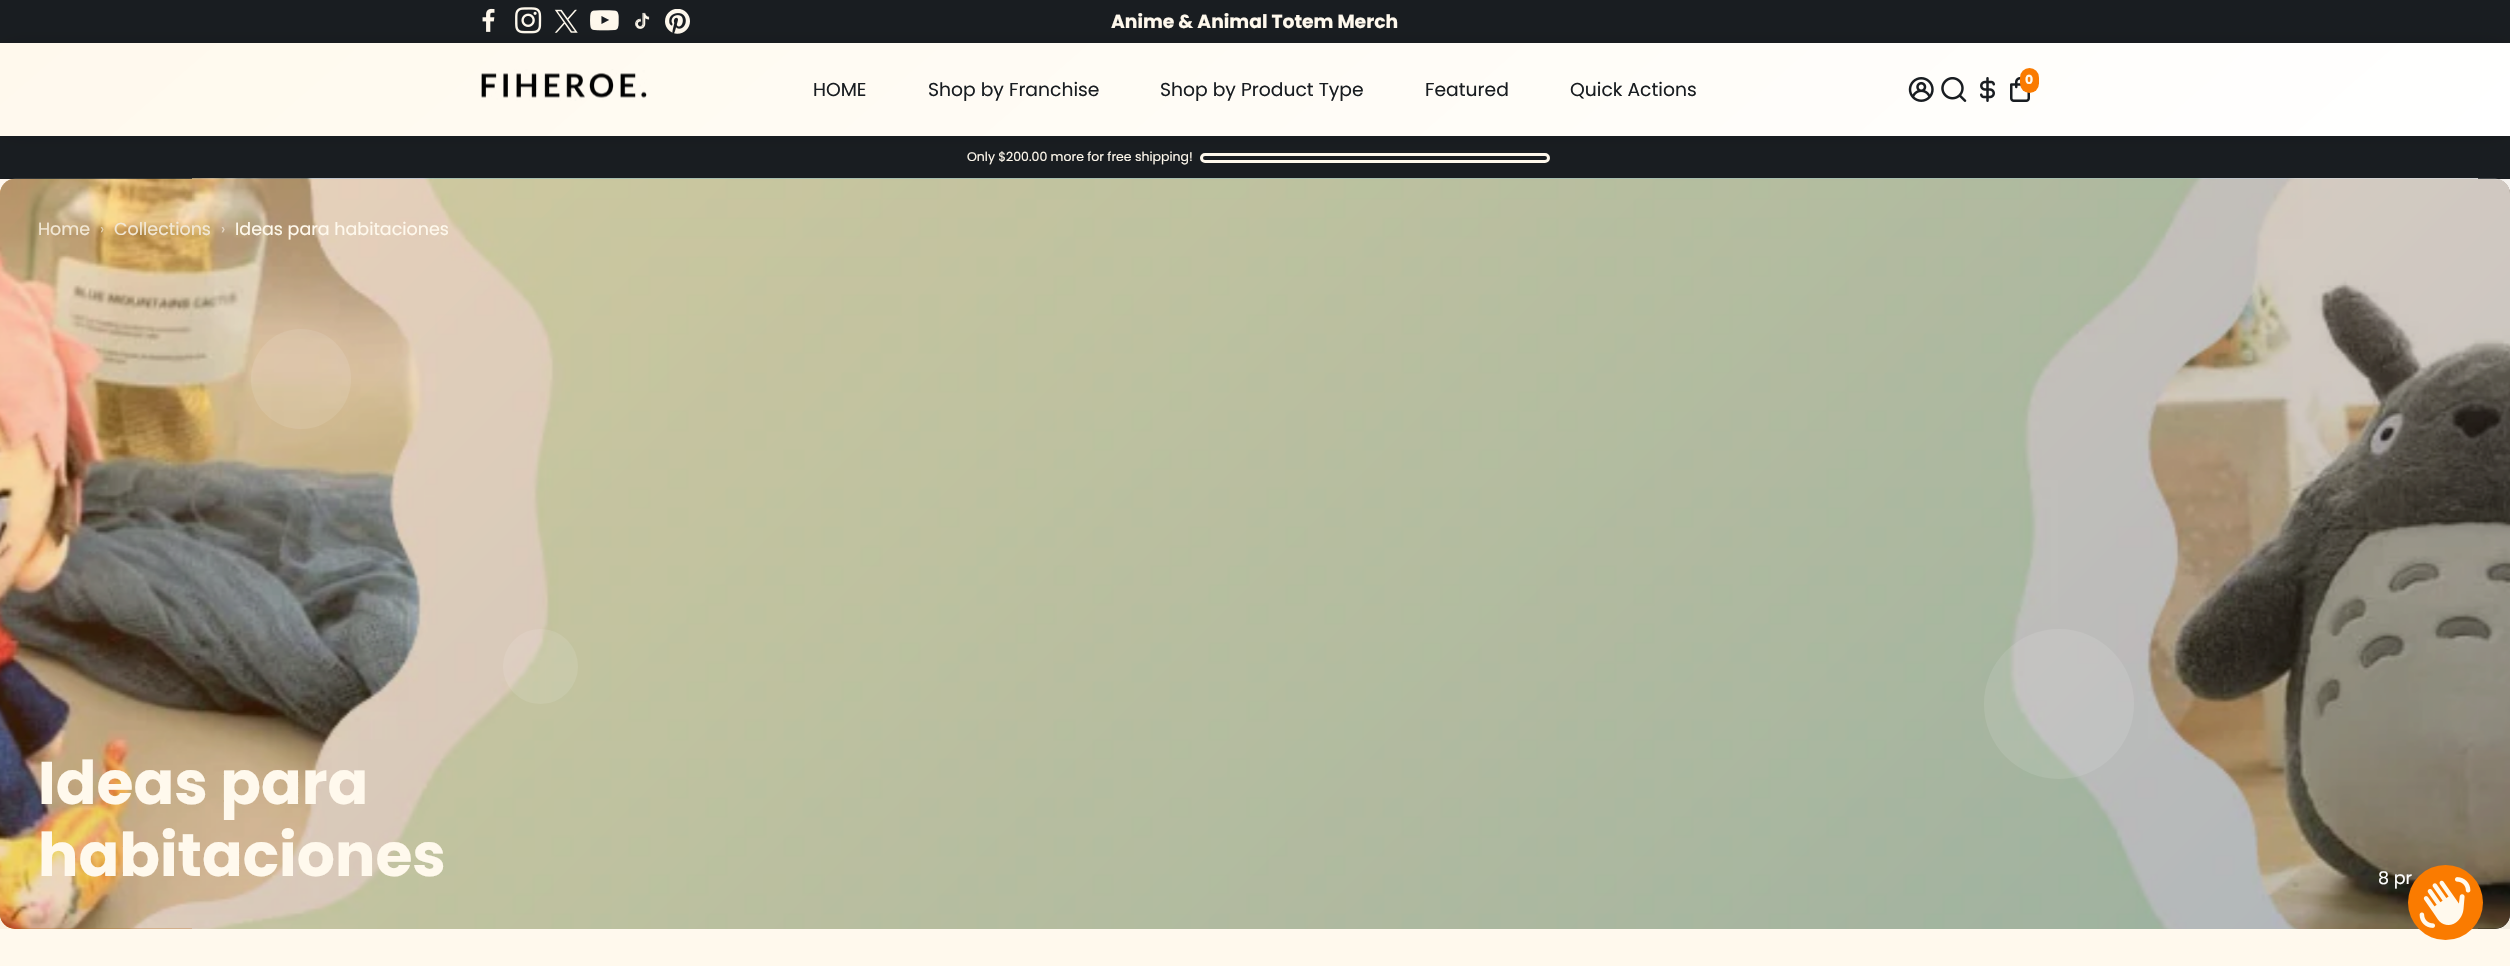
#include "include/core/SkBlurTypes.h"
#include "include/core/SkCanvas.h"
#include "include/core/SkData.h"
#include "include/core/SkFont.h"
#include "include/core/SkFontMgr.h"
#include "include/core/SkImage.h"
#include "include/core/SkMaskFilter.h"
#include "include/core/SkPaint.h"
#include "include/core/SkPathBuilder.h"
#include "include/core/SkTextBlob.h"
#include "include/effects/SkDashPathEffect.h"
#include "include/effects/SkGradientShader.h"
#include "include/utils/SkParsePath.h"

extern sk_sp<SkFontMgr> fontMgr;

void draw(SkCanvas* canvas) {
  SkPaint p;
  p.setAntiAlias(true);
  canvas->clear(SK_ColorWHITE);
  {
    const SkColor colors[] = {SkColorSetRGB(255, 249, 237), SK_ColorWHITE};
    const float stops[] = {0, 1};
    const SkPoint ends[] = {{1255, 966}, {1255, 0}};
    p.setShader(SkGradientShader::MakeLinear(ends, colors, stops, 2, SkTileMode::kClamp));
    p.setAlpha(255);
  }
  canvas->drawRect(SkRect::MakeLTRB(0, 179, 2510, 966), p);
  p.setShader(nullptr);
  p.setColor(SkColorSetRGB(25, 29, 33));
  canvas->drawRect(SkRect::MakeLTRB(0, 0, 2510, 43), p);
  canvas->drawImageRect(SkImages::DeferredFromEncodedData(SkData::MakeFromFileName("images/1.png")), SkRect::MakeLTRB(482, 8, 495, 32), SkSamplingOptions());
  canvas->drawImageRect(SkImages::DeferredFromEncodedData(SkData::MakeFromFileName("images/2.png")), SkRect::MakeLTRB(515, 7, 542, 34), SkSamplingOptions());
  canvas->drawImageRect(SkImages::DeferredFromEncodedData(SkData::MakeFromFileName("images/3.png")), SkRect::MakeLTRB(554, 9, 578, 33), SkSamplingOptions());
  canvas->drawImageRect(SkImages::DeferredFromEncodedData(SkData::MakeFromFileName("images/4.png")), SkRect::MakeLTRB(590, 10, 619, 31), SkSamplingOptions());
  canvas->drawImageRect(SkImages::DeferredFromEncodedData(SkData::MakeFromFileName("images/5.png")), SkRect::MakeLTRB(635, 12, 650, 29), SkSamplingOptions());
  canvas->drawImageRect(SkImages::DeferredFromEncodedData(SkData::MakeFromFileName("images/6.png")), SkRect::MakeLTRB(665, 9, 690, 34), SkSamplingOptions());
  canvas->drawRect(SkRect::MakeLTRB(0, 136, 2510, 179), p);
  p.setStyle(SkPaint::kStroke_Style);
  p.setStrokeWidth(3);
  p.setColor(SkColorSetRGB(255, 249, 237));
  canvas->drawRoundRect(SkRect::MakeLTRB(1201.5f, 154.5f, 1548.5f, 161.5f), 3.5f, 3.5f, p);
  p.setStyle(SkPaint::kFill_Style);
  p.setColor(SkColorSetARGB(15, 0, 0, 0));
  p.setMaskFilter(SkMaskFilter::MakeBlur(kNormal_SkBlurStyle, 12.5f));
  canvas->drawRect(SkRect::MakeLTRB(0, 43, 2510, 136), p);
  p.setMaskFilter(nullptr);
  {
    const SkColor colors[] = {SkColorSetRGB(255, 249, 237), SK_ColorWHITE};
    const float stops[] = {0, 1};
    const SkPoint ends[] = {{692, -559}, {1818, 737}};
    p.setShader(SkGradientShader::MakeLinear(ends, colors, stops, 2, SkTileMode::kClamp));
    p.setAlpha(255);
  }
  canvas->drawRect(SkRect::MakeLTRB(0, 43, 2510, 136), p);
  canvas->drawImageRect(SkImages::DeferredFromEncodedData(SkData::MakeFromFileName("images/7.png")), SkRect::MakeLTRB(481, 69, 647, 101), SkSamplingOptions());
  canvas->drawImageRect(SkImages::DeferredFromEncodedData(SkData::MakeFromFileName("images/8.png")), SkRect::MakeLTRB(1908, 77, 1934, 102), SkSamplingOptions());
  canvas->drawImageRect(SkImages::DeferredFromEncodedData(SkData::MakeFromFileName("images/9.png")), SkRect::MakeLTRB(1941, 77, 1967, 102), SkSamplingOptions());
  canvas->drawImageRect(SkImages::DeferredFromEncodedData(SkData::MakeFromFileName("images/10.png")), SkRect::MakeLTRB(1980, 77, 1995, 102), SkSamplingOptions());
  canvas->drawImageRect(SkImages::DeferredFromEncodedData(SkData::MakeFromFileName("images/11.png")), SkRect::MakeLTRB(2010, 77, 2030, 102), SkSamplingOptions());
  p.setShader(nullptr);
  p.setColor(SkColorSetRGB(250, 123, 0));
  canvas->drawRoundRect(SkRect::MakeLTRB(2020, 68, 2039, 93), 9.5f, 9.5f, p);
  {
    const SkColor colors[] = {SkColorSetRGB(250, 123, 0), SK_ColorBLACK};
    const float stops[] = {0, 1};
    const SkPoint ends[] = {{440, -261}, {2070, 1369}};
    p.setShader(SkGradientShader::MakeLinear(ends, colors, stops, 2, SkTileMode::kClamp));
    p.setAlpha(255);
  }
  canvas->drawRoundRect(SkRect::MakeLTRB(0, 179, 2510, 929), 15, 15, p);
  canvas->drawImageRect(SkImages::DeferredFromEncodedData(SkData::MakeFromFileName("images/12.png")), SkRect::MakeLTRB(0, 178, 2510, 929), SkSamplingOptions());
  {
    const SkColor colors[] = {SkColorSetARGB(13, 250, 123, 0), SkColorSetARGB(13, 0, 0, 0)};
    const float stops[] = {0, 1};
    const SkPoint ends[] = {{440, -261}, {2070, 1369}};
    p.setShader(SkGradientShader::MakeLinear(ends, colors, stops, 2, SkTileMode::kClamp));
    p.setAlpha(255);
  }
  canvas->drawRect(SkRect::MakeLTRB(0, 179, 2510, 929), p);
  p.setShader(nullptr);
  p.setColor(SkColorSetARGB(26, 255, 255, 255));
  canvas->drawCircle(301, 379, 50, p);
  canvas->drawCircle(540.5f, 666.5f, 37.5f, p);
  canvas->drawCircle(2059, 704, 75, p);
  SkFont font1(fontMgr->matchFamilyStyle("Poppins", SkFontStyle::Bold()), 18.75f);
  font1.setSubpixel(true);
  p.setColor(SkColorSetRGB(255, 249, 237));
  canvas->drawString("Anime & Animal Totem Merch", 1111, 28, font1, p);
  SkFont font2(fontMgr->matchFamilyStyle("Poppins", SkFontStyle::Bold()), 12.5f);
  font2.setSubpixel(true);
  canvas->drawString("0", 2025, 84, font2, p);
  SkFont font3(fontMgr->matchFamilyStyle("Poppins", SkFontStyle::Normal()), 18.75f);
  font3.setSubpixel(true);
  p.setColor(SkColorSetRGB(25, 29, 33));
  canvas->drawString("HOME", 813, 96, font3, p);
  canvas->drawString("Shop by Franchise", 928, 96, font3, p);
  canvas->drawString("Shop by Product Type", 1160, 96, font3, p);
  canvas->drawString("Featured", 1425, 96, font3, p);
  canvas->drawString("Quick Actions", 1570, 96, font3, p);
  SkFont font4(fontMgr->matchFamilyStyle("Poppins", SkFontStyle::Normal()), 12.5f);
  font4.setSubpixel(true);
  p.setColor(SkColorSetRGB(255, 249, 237));
  canvas->drawString("Only $200.00 more for free shipping!", 967, 161, font4, p);
  SkFont font5(fontMgr->matchFamilyStyle("Poppins", SkFontStyle::Normal()), 17.5f);
  font5.setSubpixel(true);
  p.setColor(SkColorSetRGB(242, 232, 214));
  canvas->drawString("Home", 38, 235, font5, p);
  SkFont font6(fontMgr->matchFamilyStyle("Poppins", SkFontStyle::Normal()), 15);
  font6.setSubpixel(true);
  p.setColor(SkColorSetRGB(228, 209, 175));
  canvas->drawString("›", 100, 234, font6, p);
  p.setColor(SkColorSetRGB(242, 232, 214));
  canvas->drawString("Collections", 114, 235, font5, p);
  p.setColor(SkColorSetRGB(228, 214, 195));
  canvas->drawString("›", 221, 234, font6, p);
  p.setColor(SkColorSetRGB(255, 249, 237));
  canvas->drawString("Ideas para habitaciones", 235, 235, font5, p);
  SkFont font7(fontMgr->matchFamilyStyle("Poppins", SkFontStyle::Bold()), 60);
  font7.setSubpixel(true);
  canvas->drawString("Ideas para", 38, 804, font7, p);
  canvas->drawString("habitaciones", 38, 876, font7, p);
  p.setColor(SK_ColorWHITE);
  canvas->drawString("8 pr", 2378, 884, font5, p);
  p.setColor(SkColorSetRGB(250, 123, 0));
  canvas->drawCircle(2445.5f, 902.5f, 37.5f, p);
  canvas->drawImageRect(SkImages::DeferredFromEncodedData(SkData::MakeFromFileName("images/13.png")), SkRect::MakeLTRB(2419, 877, 2471, 928), SkSamplingOptions());
}
